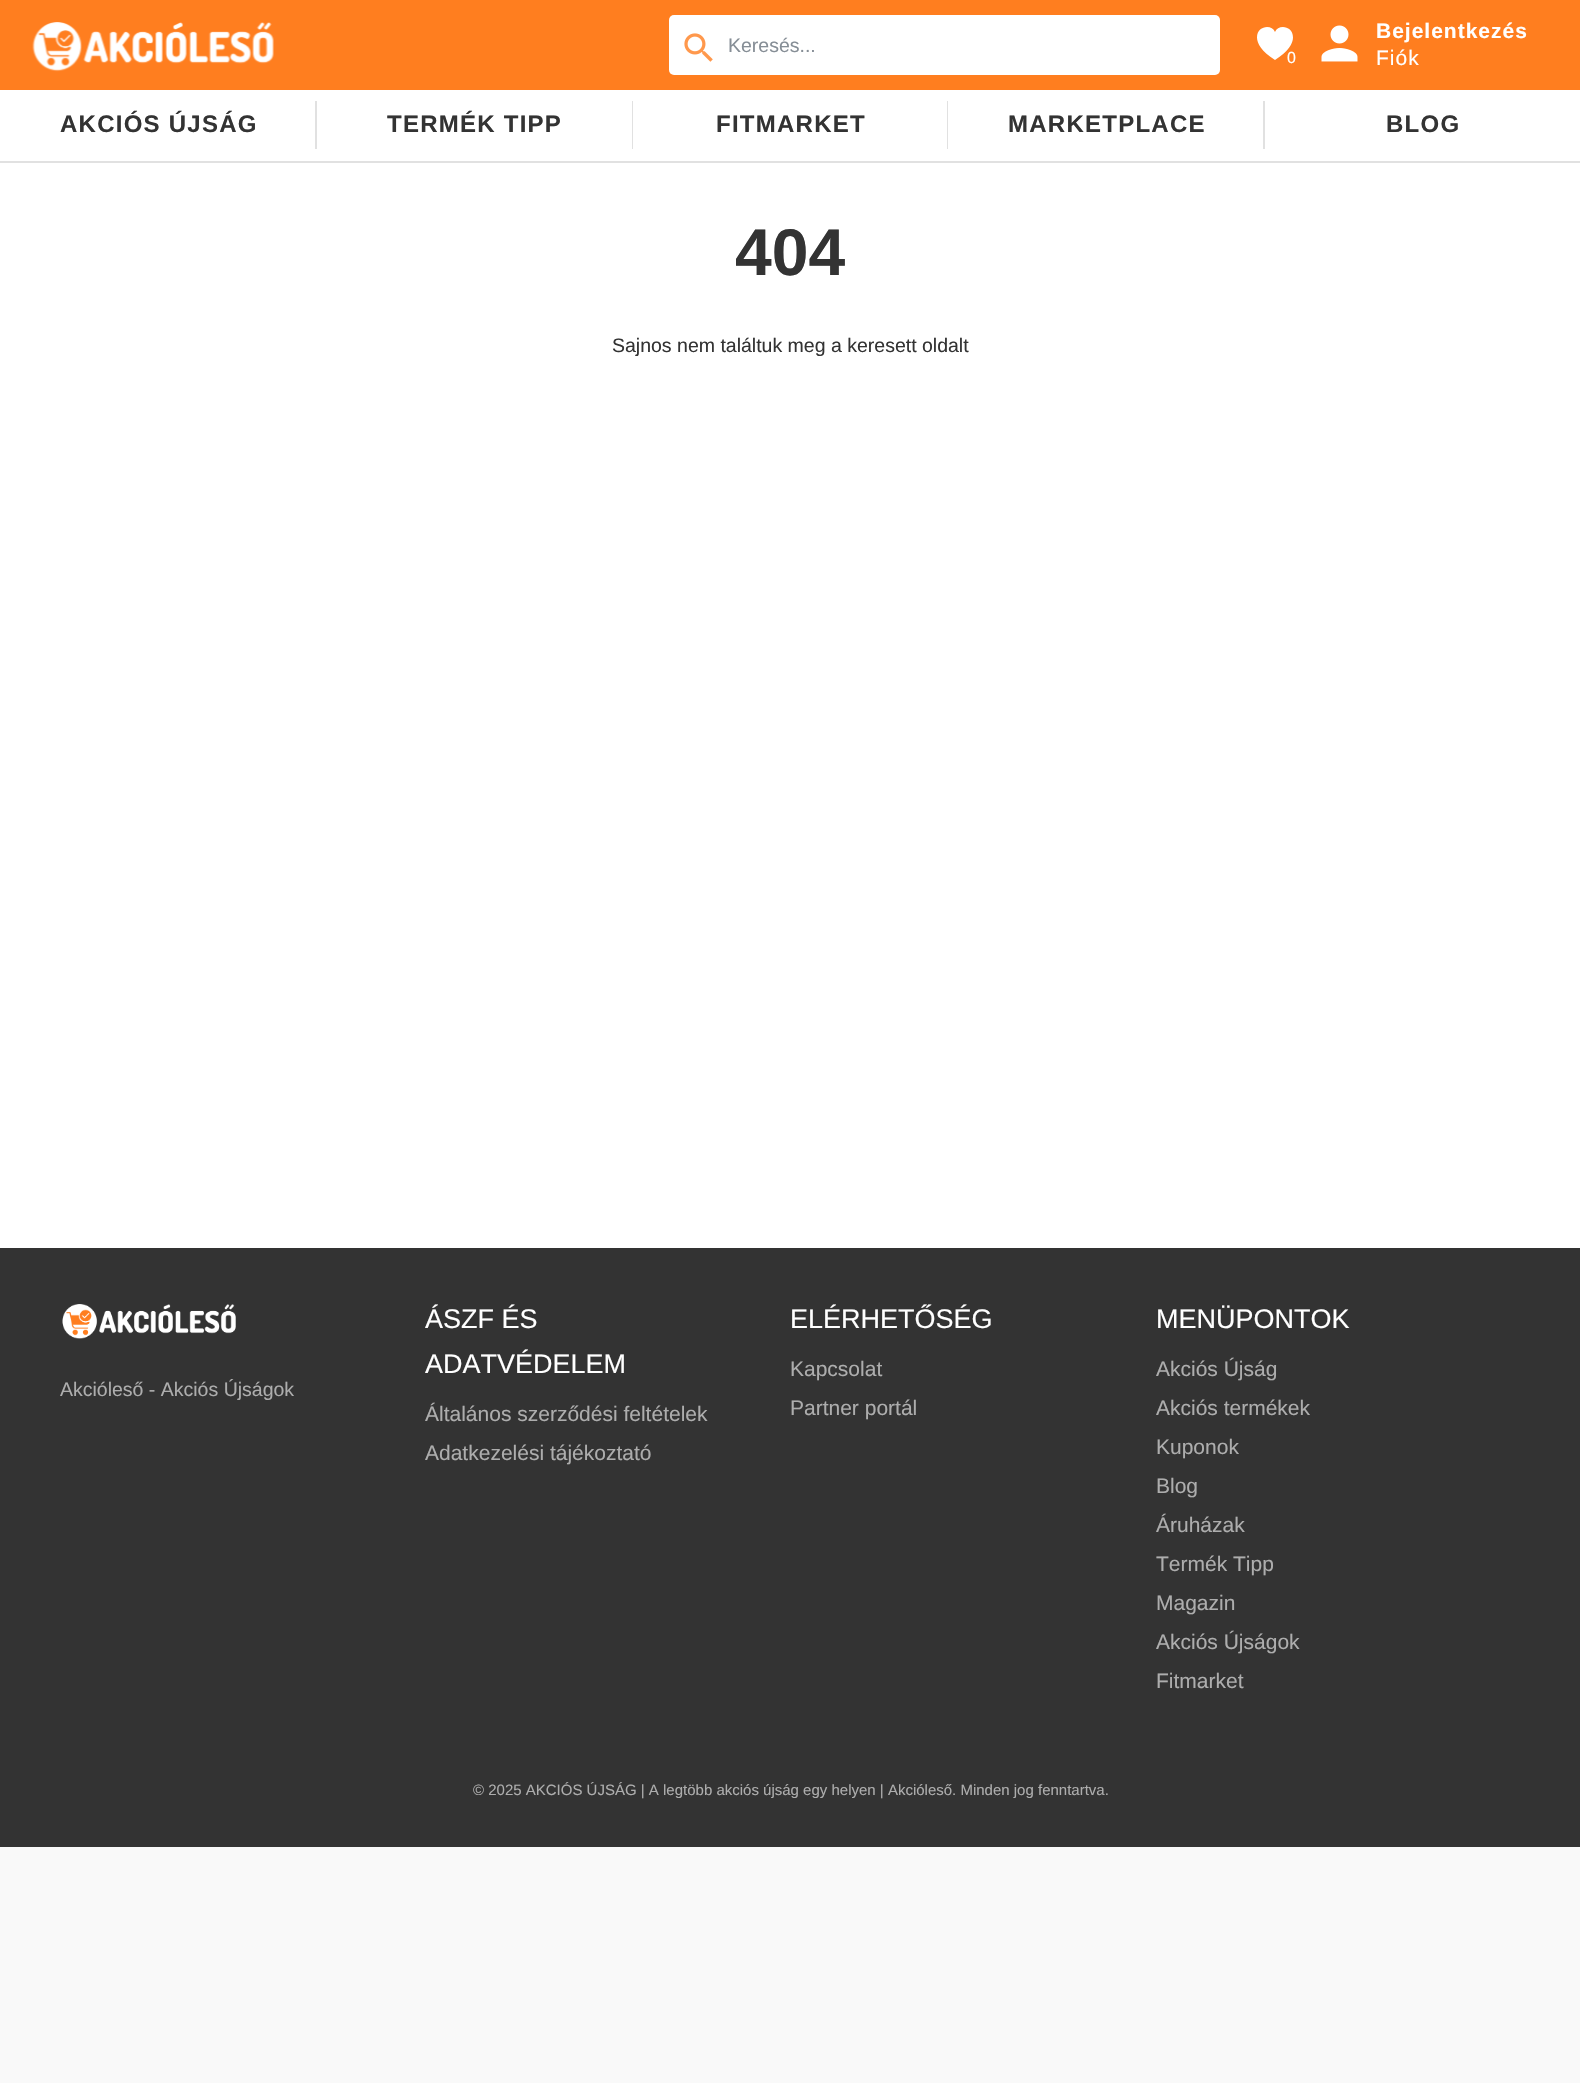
#include "include/core/SkBlurTypes.h"
#include "include/core/SkCanvas.h"
#include "include/core/SkData.h"
#include "include/core/SkFont.h"
#include "include/core/SkFontMgr.h"
#include "include/core/SkImage.h"
#include "include/core/SkMaskFilter.h"
#include "include/core/SkPaint.h"
#include "include/core/SkPathBuilder.h"
#include "include/core/SkTextBlob.h"
#include "include/effects/SkDashPathEffect.h"
#include "include/effects/SkGradientShader.h"
#include "include/utils/SkParsePath.h"

extern sk_sp<SkFontMgr> fontMgr;

void draw(SkCanvas* canvas) {
  SkPaint p;
  p.setAntiAlias(true);
  auto spacedText = [&](const char* s, float x, float y, const SkFont& font, const SkPaint& ink, float letter, float word) {
    std::vector<SkGlyphID> glyphs(font.countText(s, strlen(s), SkTextEncoding::kUTF8));
    std::vector<float> xs(glyphs.size());
    font.textToGlyphs(s, strlen(s), SkTextEncoding::kUTF8, glyphs);
    font.getXPos(glyphs, xs, x);
    float extra = 0;
    for (size_t i = 0; i < glyphs.size(); i++) {
      xs[i] += extra;
      extra += letter + word * (glyphs[i] == font.unicharToGlyph(' '));
    }
    canvas->drawTextBlob(SkTextBlob::MakeFromPosHGlyphs(glyphs, xs, y, font), 0, 0, ink);
  };
  canvas->clear(SkColorSetRGB(249, 249, 249));
  p.setColor(SK_ColorWHITE);
  canvas->drawRect(SkRect::MakeLTRB(0, 163, 1580, 1248), p);
  p.setColor(SkColorSetRGB(255, 126, 31));
  canvas->drawRect(SkRect::MakeLTRB(0, 0, 1580, 90), p);
  canvas->drawImageRect(SkImages::DeferredFromEncodedData(SkData::MakeFromFileName("images/1.png")), SkRect::MakeLTRB(32, 22, 274, 72), SkSamplingOptions());
  p.setColor(SK_ColorWHITE);
  canvas->drawRoundRect(SkRect::MakeLTRB(669, 15, 1220, 75), 5, 5, p);
  canvas->drawImageRect(SkImages::DeferredFromEncodedData(SkData::MakeFromFileName("images/2.png")), SkRect::MakeLTRB(684, 33, 713, 62), SkSamplingOptions());
  canvas->drawPath(SkPathBuilder().moveTo(1275, 32).cubicTo(1272, 24, 1257, 25.5f, 1257, 37.5f).cubicTo(1257, 43.5f, 1261.5f, 51.5f, 1275, 60).cubicTo(1288.5f, 51.5f, 1293, 43.5f, 1293, 37.5f).cubicTo(1293, 25.5f, 1278, 24, 1275, 32).close().detach(), p);
  canvas->drawImageRect(SkImages::DeferredFromEncodedData(SkData::MakeFromFileName("images/3.png")), SkRect::MakeLTRB(1321, 25, 1358, 62), SkSamplingOptions());
  canvas->drawRect(SkRect::MakeLTRB(0, 90, 1580, 161), p);
  p.setColor(SkColorSetRGB(225, 225, 225));
  canvas->drawRect(SkRect::MakeLTRB(0, 161, 1580, 163), p);
  canvas->drawRect(SkRect::MakeLTRB(315, 101, 317, 149), p);
  canvas->drawRect(SkRect::MakeLTRB(632, 101, 633, 149), p);
  canvas->drawRect(SkRect::MakeLTRB(947, 101, 948, 149), p);
  canvas->drawRect(SkRect::MakeLTRB(1263, 101, 1265, 149), p);
  p.setColor(SkColorSetRGB(51, 51, 51));
  canvas->drawRect(SkRect::MakeLTRB(0, 1248, 1580, 1847), p);
  canvas->drawImageRect(SkImages::DeferredFromEncodedData(SkData::MakeFromFileName("images/4.png")), SkRect::MakeLTRB(62, 1304, 236, 1339), SkSamplingOptions());
  SkFont font1(fontMgr->matchFamilyStyle("Liberation Sans", SkFontStyle::Normal()), 19.5f);
  font1.setSubpixel(true);
  p.setColor(SkColorSetRGB(134, 142, 150));
  canvas->drawString("Keresés...", 728, 52, font1, p);
  SkFont font2(fontMgr->matchFamilyStyle("Liberation Sans", SkFontStyle::Normal()), 16);
  font2.setSubpixel(true);
  p.setColor(SK_ColorWHITE);
  spacedText("0", 1287, 63, font2, p, 1, 0);
  SkFont font3(fontMgr->matchFamilyStyle("Liberation Sans", SkFontStyle::Bold()), 21);
  font3.setSubpixel(true);
  spacedText("Bejelentkezés", 1376, 38, font3, p, 1, 0);
  SkFont font4(fontMgr->matchFamilyStyle("Liberation Sans", SkFontStyle::Normal()), 21);
  font4.setSubpixel(true);
  spacedText("Fiók", 1376, 65, font4, p, 1, 0);
  SkFont font5(fontMgr->matchFamilyStyle("Liberation Sans", SkFontStyle::Bold()), 24);
  font5.setSubpixel(true);
  p.setColor(SkColorSetRGB(51, 51, 51));
  spacedText("AKCIÓS ÚJSÁG", 60, 132, font5, p, 1.25f, 0);
  spacedText("TERMÉK TIPP", 387, 132, font5, p, 1.25f, 0);
  spacedText("FITMARKET", 716, 132, font5, p, 1.25f, 0);
  spacedText("MARKETPLACE", 1008, 132, font5, p, 1.25f, 0);
  spacedText("BLOG", 1386, 132, font5, p, 1.25f, 0);
  SkFont font6(fontMgr->matchFamilyStyle("Liberation Sans", SkFontStyle::Bold()), 66);
  font6.setSubpixel(true);
  canvas->drawString("404", 735, 275, font6, p);
  canvas->drawString("Sajnos nem találtuk meg a keresett oldalt", 612, 352, font1, p);
  p.setColor(SkColorSetRGB(173, 173, 173));
  canvas->drawString("Akcióleső - Akciós Újságok", 60, 1396, font1, p);
  SkFont font7(fontMgr->matchFamilyStyle("Liberation Sans", SkFontStyle::Normal()), 27);
  font7.setSubpixel(true);
  p.setColor(SK_ColorWHITE);
  canvas->drawString("ÁSZF ÉS", 425, 1328, font7, p);
  canvas->drawString("ADATVÉDELEM", 425, 1373, font7, p);
  p.setColor(SkColorSetRGB(173, 173, 173));
  canvas->drawString("Általános szerződési feltételek", 425, 1421, font4, p);
  canvas->drawString("Adatkezelési tájékoztató", 425, 1460, font4, p);
  p.setColor(SK_ColorWHITE);
  canvas->drawString("ELÉRHETŐSÉG", 790, 1328, font7, p);
  p.setColor(SkColorSetRGB(173, 173, 173));
  canvas->drawString("Kapcsolat", 790, 1376, font4, p);
  canvas->drawString("Partner portál", 790, 1415, font4, p);
  p.setColor(SK_ColorWHITE);
  canvas->drawString("MENÜPONTOK", 1156, 1328, font7, p);
  p.setColor(SkColorSetRGB(173, 173, 173));
  canvas->drawString("Akciós Újság", 1156, 1376, font4, p);
  canvas->drawString("Akciós termékek", 1156, 1415, font4, p);
  canvas->drawString("Kuponok", 1156, 1454, font4, p);
  canvas->drawString("Blog", 1156, 1493, font4, p);
  canvas->drawString("Áruházak", 1156, 1532, font4, p);
  canvas->drawString("Termék Tipp", 1156, 1571, font4, p);
  canvas->drawString("Magazin", 1156, 1610, font4, p);
  canvas->drawString("Akciós Újságok", 1156, 1649, font4, p);
  canvas->drawString("Fitmarket", 1156, 1688, font4, p);
  SkFont font8(fontMgr->matchFamilyStyle("Liberation Sans", SkFontStyle::Normal()), 15);
  font8.setSubpixel(true);
  canvas->drawString("© 2025 AKCIÓS ÚJSÁG | A legtöbb akciós újság egy helyen | Akcióleső. Minden jog fenntartva.", 473, 1795, font8, p);
}
